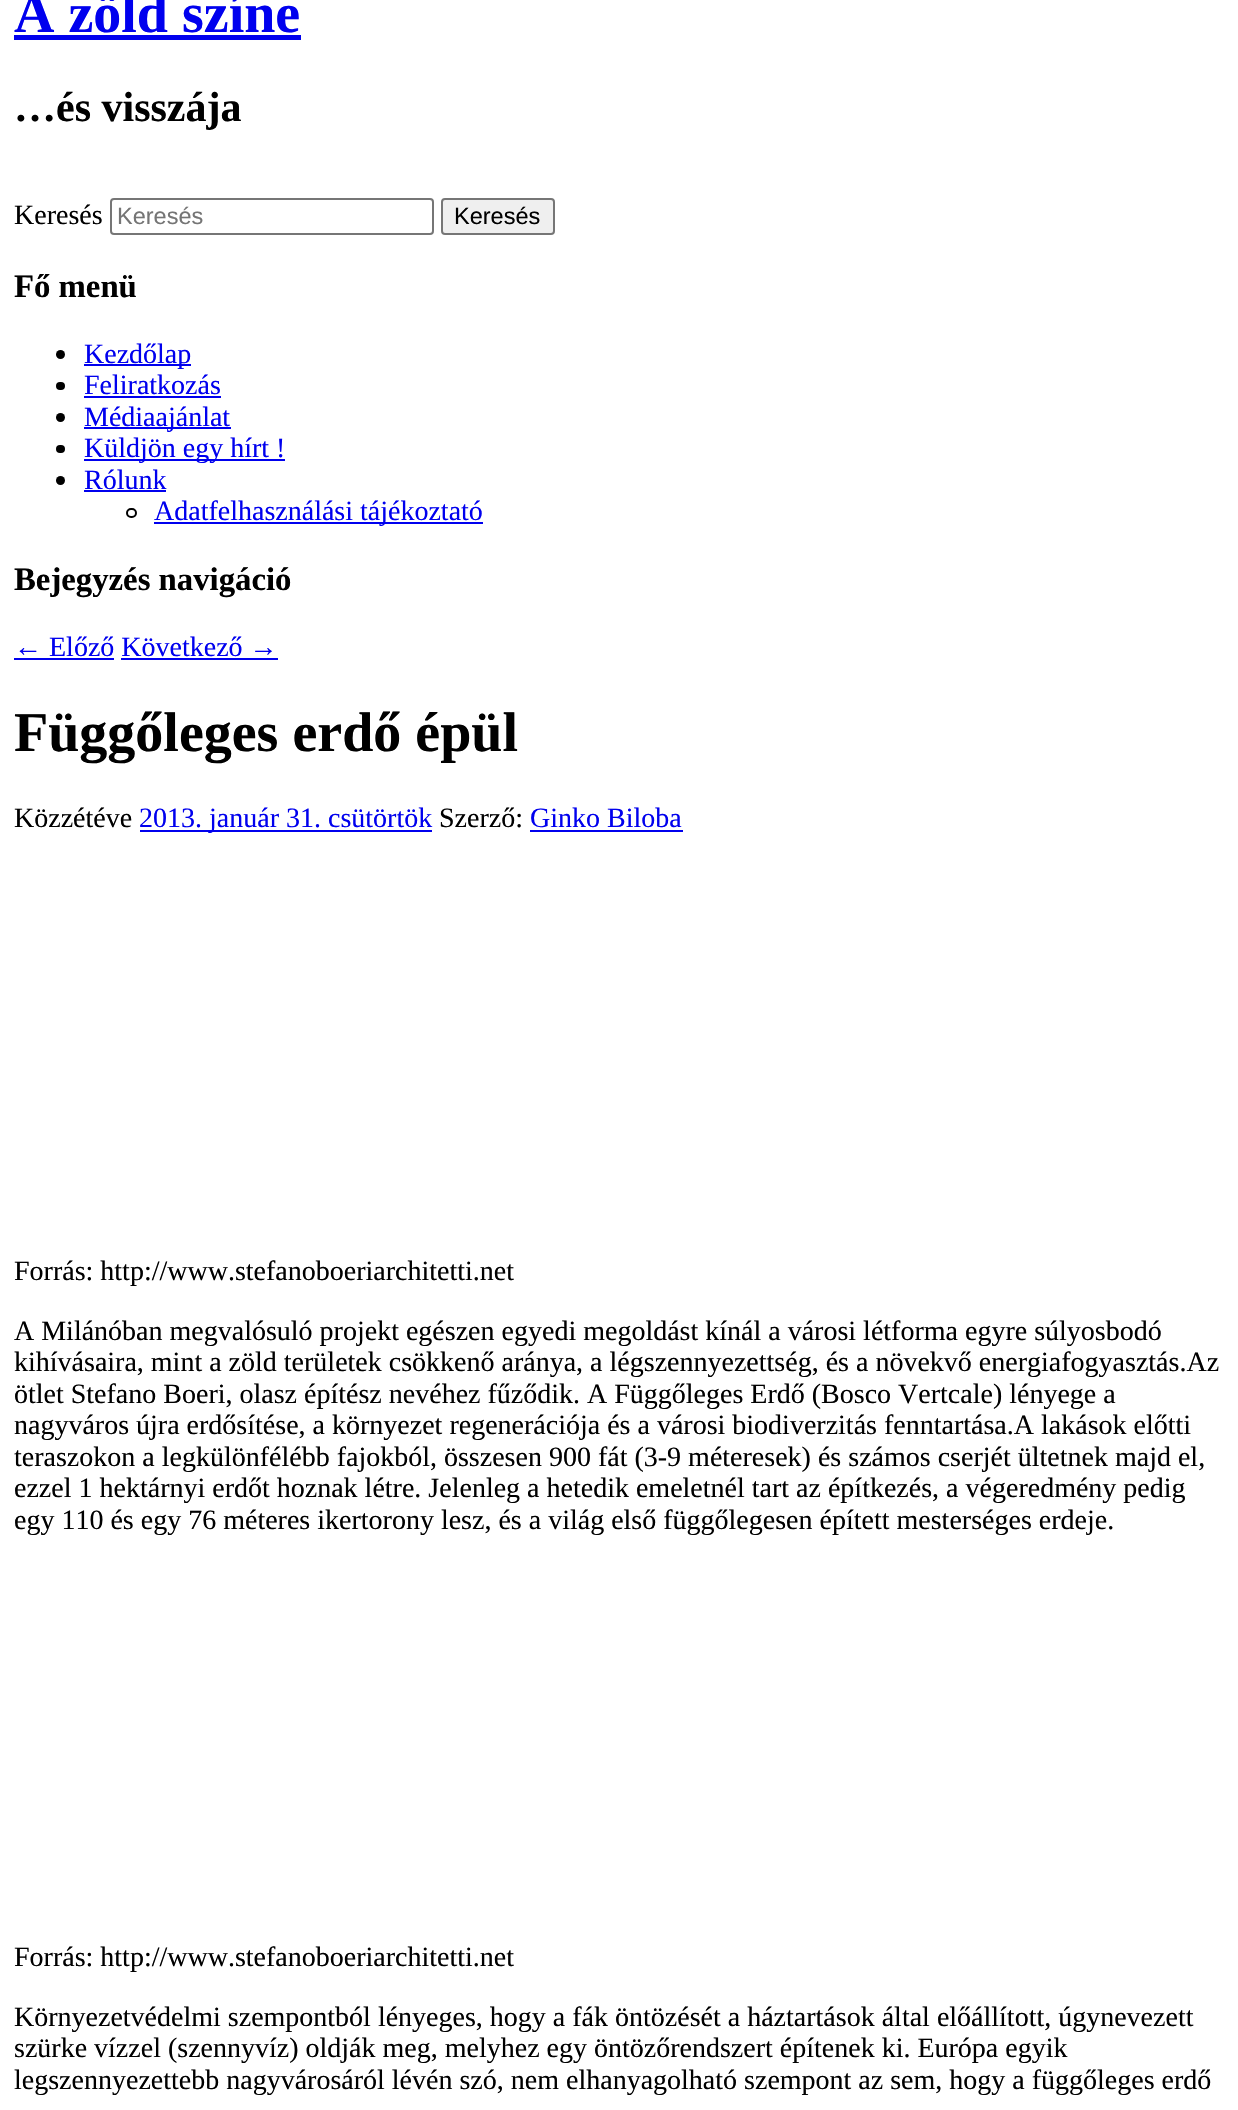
#include "include/core/SkBlurTypes.h"
#include "include/core/SkCanvas.h"
#include "include/core/SkData.h"
#include "include/core/SkFont.h"
#include "include/core/SkFontMgr.h"
#include "include/core/SkImage.h"
#include "include/core/SkMaskFilter.h"
#include "include/core/SkPaint.h"
#include "include/core/SkPathBuilder.h"
#include "include/core/SkTextBlob.h"
#include "include/effects/SkDashPathEffect.h"
#include "include/effects/SkGradientShader.h"
#include "include/utils/SkParsePath.h"

extern sk_sp<SkFontMgr> fontMgr;

void draw(SkCanvas* canvas) {
  SkPaint p;
  p.setAntiAlias(true);
  canvas->clear(SK_ColorWHITE);
  p.setColor(SkColorSetRGB(0, 0, 238));
  canvas->drawRect(SkRect::MakeLTRB(14, 35, 301, 40), p);
  p.setStyle(SkPaint::kStroke_Style);
  p.setStrokeWidth(2);
  p.setColor(SkColorSetRGB(118, 118, 118));
  canvas->drawRoundRect(SkRect::MakeLTRB(111, 199, 433, 234), 3, 3, p);
  p.setStyle(SkPaint::kFill_Style);
  p.setColor(SkColorSetRGB(239, 239, 239));
  canvas->drawRoundRect(SkRect::MakeLTRB(442, 199, 554, 234), 3, 3, p);
  p.setStyle(SkPaint::kStroke_Style);
  p.setColor(SkColorSetRGB(118, 118, 118));
  canvas->drawRoundRect(SkRect::MakeLTRB(442, 199, 554, 234), 3, 3, p);
  p.setStyle(SkPaint::kFill_Style);
  p.setColor(SK_ColorBLACK);
  canvas->drawCircle(60.5f, 354.5f, 4.5f, p);
  p.setColor(SkColorSetRGB(0, 0, 238));
  canvas->drawRect(SkRect::MakeLTRB(84, 364, 191, 366), p);
  p.setColor(SK_ColorBLACK);
  canvas->drawRoundRect(SkRect::MakeLTRB(56, 382, 65, 390), 4, 4, p);
  p.setColor(SkColorSetRGB(0, 0, 238));
  canvas->drawRect(SkRect::MakeLTRB(84, 396, 221, 398), p);
  p.setColor(SK_ColorBLACK);
  canvas->drawCircle(60.5f, 417.5f, 4.5f, p);
  p.setColor(SkColorSetRGB(0, 0, 238));
  canvas->drawRect(SkRect::MakeLTRB(84, 427, 231, 429), p);
  p.setColor(SK_ColorBLACK);
  canvas->drawRoundRect(SkRect::MakeLTRB(56, 445, 65, 453), 4, 4, p);
  p.setColor(SkColorSetRGB(0, 0, 238));
  canvas->drawRect(SkRect::MakeLTRB(84, 459, 285, 461), p);
  p.setColor(SK_ColorBLACK);
  canvas->drawCircle(60.5f, 480.5f, 4.5f, p);
  p.setColor(SkColorSetRGB(0, 0, 238));
  canvas->drawRect(SkRect::MakeLTRB(84, 490, 166, 492), p);
  p.setStyle(SkPaint::kStroke_Style);
  p.setColor(SK_ColorBLACK);
  canvas->drawRoundRect(SkRect::MakeLTRB(127, 509, 136, 517), 4, 4, p);
  p.setStyle(SkPaint::kFill_Style);
  p.setColor(SkColorSetRGB(0, 0, 238));
  canvas->drawRect(SkRect::MakeLTRB(154, 522, 483, 524), p);
  canvas->drawRect(SkRect::MakeLTRB(14, 658, 114, 660), p);
  canvas->drawRect(SkRect::MakeLTRB(121, 658, 278, 660), p);
  canvas->drawRect(SkRect::MakeLTRB(140, 830, 432, 832), p);
  canvas->drawRect(SkRect::MakeLTRB(530, 830, 683, 832), p);
  SkFont font1(fontMgr->matchFamilyStyle("Liberation Serif", SkFontStyle::Bold()), 56);
  font1.setSubpixel(true);
  canvas->drawString("A zöld színe", 14, 32, font1, p);
  SkFont font2(fontMgr->matchFamilyStyle("Liberation Serif", SkFontStyle::Bold()), 42);
  font2.setSubpixel(true);
  p.setColor(SK_ColorBLACK);
  canvas->drawString("…és visszája", 14, 121, font2, p);
  SkFont font3(fontMgr->matchFamilyStyle("Liberation Serif", SkFontStyle::Normal()), 28);
  font3.setSubpixel(true);
  canvas->drawString("Keresés", 14, 224, font3, p);
  SkFont font4(fontMgr->matchFamilyStyle("Liberation Sans", SkFontStyle::Normal()), 23.5f);
  font4.setSubpixel(true);
  p.setColor(SkColorSetRGB(117, 117, 117));
  canvas->drawString("Keresés", 117, 224, font4, p);
  p.setColor(SK_ColorBLACK);
  canvas->drawString("Keresés", 454, 224, font4, p);
  SkFont font5(fontMgr->matchFamilyStyle("Liberation Serif", SkFontStyle::Bold()), 32.75f);
  font5.setSubpixel(true);
  canvas->drawString("Fő menü", 14, 297, font5, p);
  p.setColor(SkColorSetRGB(0, 0, 238));
  canvas->drawString("Kezdőlap", 84, 363, font3, p);
  canvas->drawString("Feliratkozás", 84, 394, font3, p);
  canvas->drawString("Médiaajánlat", 84, 426, font3, p);
  canvas->drawString("Küldjön egy hírt !", 84, 457, font3, p);
  canvas->drawString("Rólunk", 84, 489, font3, p);
  canvas->drawString("Adatfelhasználási tájékoztató", 154, 520, font3, p);
  p.setColor(SK_ColorBLACK);
  canvas->drawString("Bejegyzés navigáció", 14, 590, font5, p);
  p.setColor(SkColorSetRGB(0, 0, 238));
  canvas->drawString("← Előző Következő →", 14, 656, font3, p);
  p.setColor(SK_ColorBLACK);
  canvas->drawString("Függőleges erdő épül", 14, 751, font1, p);
  canvas->drawString("Közzétéve", 14, 827, font3, p);
  p.setColor(SkColorSetRGB(0, 0, 238));
  canvas->drawString("2013. január 31. csütörtök", 139, 827, font3, p);
  p.setColor(SK_ColorBLACK);
  canvas->drawString("Szerző:", 439, 827, font3, p);
  p.setColor(SkColorSetRGB(0, 0, 238));
  canvas->drawString("Ginko Biloba", 530, 827, font3, p);
  p.setColor(SK_ColorBLACK);
  canvas->drawString("Forrás: http://www.stefanoboeriarchitetti.net", 14, 1280, font3, p);
  canvas->drawString("A Milánóban megvalósuló projekt egészen egyedi megoldást kínál a városi létforma egyre súlyosbodó", 14, 1340, font3, p);
  canvas->drawString("kihívásaira, mint a zöld területek csökkenő aránya, a légszennyezettség, és a növekvő energiafogyasztás.Az", 14, 1371, font3, p);
  canvas->drawString("ötlet Stefano Boeri, olasz építész nevéhez fűződik. A Függőleges Erdő (Bosco Vertcale) lényege a", 14, 1403, font3, p);
  canvas->drawString("nagyváros újra erdősítése, a környezet regenerációja és a városi biodiverzitás fenntartása.A lakások előtti", 14, 1434, font3, p);
  canvas->drawString("teraszokon a legkülönfélébb fajokból, összesen 900 fát (3-9 méteresek) és számos cserjét ültetnek majd el,", 14, 1466, font3, p);
  canvas->drawString("ezzel 1 hektárnyi erdőt hoznak létre. Jelenleg a hetedik emeletnél tart az építkezés, a végeredmény pedig", 14, 1497, font3, p);
  canvas->drawString("egy 110 és egy 76 méteres ikertorony lesz, és a világ első függőlegesen épített mesterséges erdeje.", 14, 1529, font3, p);
  canvas->drawString("Forrás: http://www.stefanoboeriarchitetti.net", 14, 1966, font3, p);
  canvas->drawString("Környezetvédelmi szempontból lényeges, hogy a fák öntözését a háztartások által előállított, úgynevezett", 14, 2026, font3, p);
  canvas->drawString("szürke vízzel (szennyvíz) oldják meg, melyhez egy öntözőrendszert építenek ki. Európa egyik", 14, 2057, font3, p);
  canvas->drawString("legszennyezettebb nagyvárosáról lévén szó, nem elhanyagolható szempont az sem, hogy a függőleges erdő", 14, 2089, font3, p);
}
